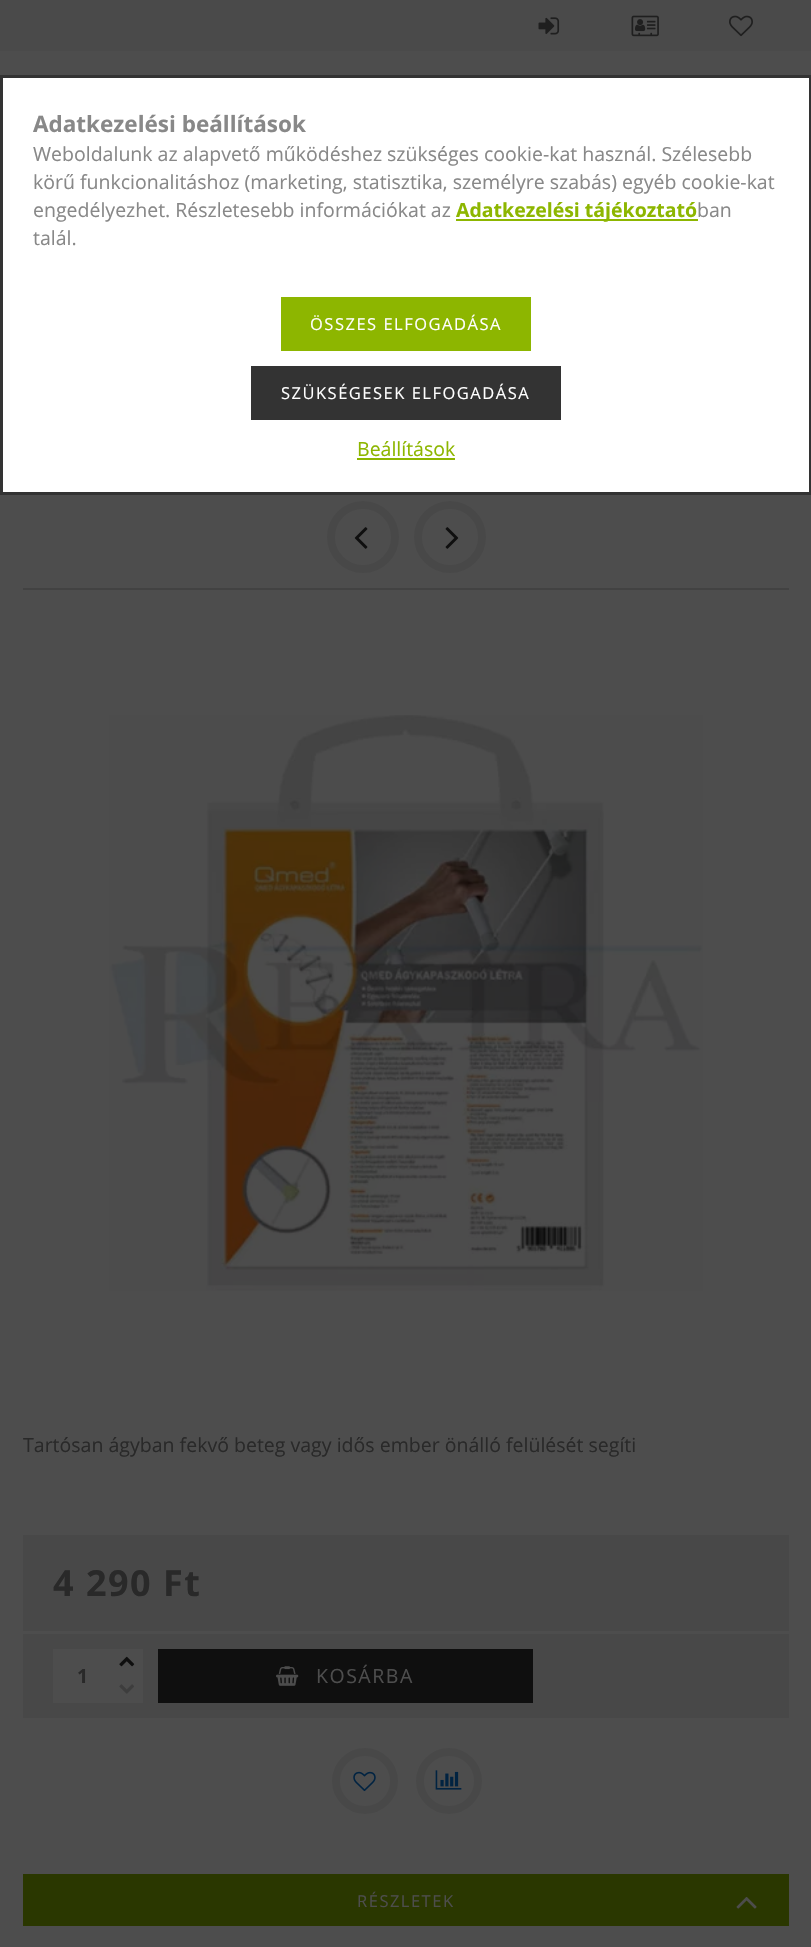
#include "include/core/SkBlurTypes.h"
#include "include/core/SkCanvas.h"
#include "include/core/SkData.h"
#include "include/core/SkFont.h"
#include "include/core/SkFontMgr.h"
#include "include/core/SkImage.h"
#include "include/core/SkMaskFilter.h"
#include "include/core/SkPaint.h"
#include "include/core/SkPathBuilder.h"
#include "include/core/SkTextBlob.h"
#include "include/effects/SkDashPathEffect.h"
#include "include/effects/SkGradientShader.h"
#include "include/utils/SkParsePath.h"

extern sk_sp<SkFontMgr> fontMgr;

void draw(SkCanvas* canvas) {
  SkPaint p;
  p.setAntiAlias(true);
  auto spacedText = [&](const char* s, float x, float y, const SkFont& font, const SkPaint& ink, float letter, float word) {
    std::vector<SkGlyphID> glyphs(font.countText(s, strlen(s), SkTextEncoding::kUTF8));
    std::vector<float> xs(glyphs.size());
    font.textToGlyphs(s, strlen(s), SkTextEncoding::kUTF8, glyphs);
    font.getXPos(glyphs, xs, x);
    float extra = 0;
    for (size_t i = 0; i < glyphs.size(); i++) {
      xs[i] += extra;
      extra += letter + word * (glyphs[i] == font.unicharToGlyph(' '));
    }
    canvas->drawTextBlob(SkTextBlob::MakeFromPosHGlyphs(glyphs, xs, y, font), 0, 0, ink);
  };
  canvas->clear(SkColorSetRGB(77, 77, 77));
  p.setColor(SK_ColorWHITE);
  canvas->drawRect(SkRect::MakeLTRB(1.5f, 76.5f, 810.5f, 493.5f), p);
  p.setStyle(SkPaint::kStroke_Style);
  p.setStrokeWidth(3);
  p.setColor(SkColorSetRGB(51, 51, 51));
  canvas->drawRect(SkRect::MakeLTRB(1.5f, 76.5f, 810.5f, 493.5f), p);
  p.setStyle(SkPaint::kFill_Style);
  p.setColor(SkColorSetRGB(141, 182, 0));
  canvas->drawRect(SkRect::MakeLTRB(456, 219, 698, 221), p);
  canvas->drawRect(SkRect::MakeLTRB(281, 297, 531, 351), p);
  p.setColor(SkColorSetRGB(51, 51, 51));
  canvas->drawRect(SkRect::MakeLTRB(251, 366, 561, 420), p);
  p.setColor(SkColorSetRGB(141, 182, 0));
  canvas->drawRect(SkRect::MakeLTRB(357, 458, 455, 460), p);
  p.setColor(SkColorSetRGB(74, 74, 74));
  canvas->drawRect(SkRect::MakeLTRB(0, 0, 811, 51), p);
  canvas->drawImageRect(SkImages::DeferredFromEncodedData(SkData::MakeFromFileName("images/1.png")), SkRect::MakeLTRB(538, 17, 560, 35), SkSamplingOptions());
  canvas->drawImageRect(SkImages::DeferredFromEncodedData(SkData::MakeFromFileName("images/2.png")), SkRect::MakeLTRB(631, 15, 659, 37), SkSamplingOptions());
  canvas->drawImageRect(SkImages::DeferredFromEncodedData(SkData::MakeFromFileName("images/3.png")), SkRect::MakeLTRB(729, 15, 753, 37), SkSamplingOptions());
  p.setColor(SkColorSetRGB(66, 66, 66));
  canvas->drawRect(SkRect::MakeLTRB(23, 588, 789, 590), p);
  p.setStyle(SkPaint::kStroke_Style);
  p.setStrokeWidth(8);
  p.setColor(SkColorSetRGB(72, 72, 72));
  canvas->drawCircle(363, 537, 32, p);
  canvas->drawImageRect(SkImages::DeferredFromEncodedData(SkData::MakeFromFileName("images/4.png")), SkRect::MakeLTRB(354, 527, 368, 549), SkSamplingOptions());
  canvas->drawCircle(450, 537, 32, p);
  canvas->drawImageRect(SkImages::DeferredFromEncodedData(SkData::MakeFromFileName("images/5.png")), SkRect::MakeLTRB(445, 527, 459, 549), SkSamplingOptions());
  canvas->drawImageRect(SkImages::DeferredFromEncodedData(SkData::MakeFromFileName("images/6.png")), SkRect::MakeLTRB(109, 715, 703, 1291), SkSamplingOptions());
  p.setStyle(SkPaint::kFill_Style);
  canvas->drawRect(SkRect::MakeLTRB(23, 1535, 789, 1631), p);
  canvas->drawRect(SkRect::MakeLTRB(23, 1634, 789, 1718), p);
  p.setColor(SkColorSetRGB(77, 77, 77));
  canvas->drawRect(SkRect::MakeLTRB(53, 1649, 113, 1703), p);
  canvas->drawRect(SkRect::MakeLTRB(113, 1649, 143, 1703), p);
  canvas->drawImageRect(SkImages::DeferredFromEncodedData(SkData::MakeFromFileName("images/7.png")), SkRect::MakeLTRB(119, 1656, 135, 1667), SkSamplingOptions());
  canvas->drawImageRect(SkImages::DeferredFromEncodedData(SkData::MakeFromFileName("images/8.png")), SkRect::MakeLTRB(119, 1684, 134, 1694), SkSamplingOptions());
  p.setColor(SkColorSetRGB(15, 15, 15));
  canvas->drawRect(SkRect::MakeLTRB(158, 1649, 533, 1703), p);
  canvas->drawImageRect(SkImages::DeferredFromEncodedData(SkData::MakeFromFileName("images/9.png")), SkRect::MakeLTRB(276, 1666, 299, 1686), SkSamplingOptions());
  p.setStyle(SkPaint::kStroke_Style);
  p.setColor(SkColorSetRGB(72, 72, 72));
  canvas->drawCircle(365, 1781, 29, p);
  canvas->drawImageRect(SkImages::DeferredFromEncodedData(SkData::MakeFromFileName("images/10.png")), SkRect::MakeLTRB(353, 1771, 376, 1792), SkSamplingOptions());
  canvas->drawCircle(449, 1781, 29, p);
  canvas->drawImageRect(SkImages::DeferredFromEncodedData(SkData::MakeFromFileName("images/11.png")), SkRect::MakeLTRB(435, 1770, 462, 1790), SkSamplingOptions());
  p.setStyle(SkPaint::kFill_Style);
  p.setColor(SkColorSetRGB(42, 55, 0));
  canvas->drawRect(SkRect::MakeLTRB(23, 1874, 789, 1926), p);
  canvas->drawImageRect(SkImages::DeferredFromEncodedData(SkData::MakeFromFileName("images/12.png")), SkRect::MakeLTRB(736, 1897, 757, 1909), SkSamplingOptions());
  SkFont font1(fontMgr->matchFamilyStyle("Open Sans", SkFontStyle::Bold()), 22.5f);
  font1.setSubpixel(true);
  p.setColor(SkColorSetRGB(136, 136, 136));
  canvas->drawString("Adatkezelési beállítások", 33, 132, font1, p);
  SkFont font2(fontMgr->matchFamilyStyle("Open Sans", SkFontStyle::Normal()), 19.5f);
  font2.setSubpixel(true);
  canvas->drawString("Weboldalunk az alapvető működéshez szükséges cookie-kat használ. Szélesebb", 33, 161, font2, p);
  canvas->drawString("körű funkcionalitáshoz (marketing, statisztika, személyre szabás) egyéb cookie-kat", 33, 189, font2, p);
  canvas->drawString("engedélyezhet. Részletesebb információkat az", 33, 217, font2, p);
  SkFont font3(fontMgr->matchFamilyStyle("Open Sans", SkFontStyle::Bold()), 19.5f);
  font3.setSubpixel(true);
  p.setColor(SkColorSetRGB(141, 182, 0));
  canvas->drawString("Adatkezelési tájékoztató", 456, 217, font3, p);
  p.setColor(SkColorSetRGB(136, 136, 136));
  canvas->drawString("ban", 697, 217, font2, p);
  canvas->drawString("talál.", 33, 245, font2, p);
  SkFont font4(fontMgr->matchFamilyStyle("Open Sans", SkFontStyle::Normal()), 16.5f);
  font4.setSubpixel(true);
  p.setColor(SK_ColorWHITE);
  spacedText("ÖSSZES ELFOGADÁSA", 310, 330, font4, p, 1.5f, 0);
  spacedText("SZÜKSÉGESEK ELFOGADÁSA", 281, 399, font4, p, 1.5f, 0);
  p.setColor(SkColorSetRGB(141, 182, 0));
  canvas->drawString("Beállítások", 357, 456, font2, p);
  p.setColor(SkColorSetRGB(41, 41, 41));
  canvas->drawString("Tartósan ágyban fekvő beteg vagy idős ember önálló felülését segíti", 23, 1452, font2, p);
  SkFont font5(fontMgr->matchFamilyStyle("Open Sans", SkFontStyle::Bold()), 36);
  font5.setSubpixel(true);
  spacedText("4 290 Ft", 53, 1596, font5, p, 1.5f, 0);
  canvas->drawString("1", 77, 1683, font3, p);
  p.setColor(SkColorSetRGB(77, 77, 77));
  spacedText("KOSÁRBA", 316, 1683, font2, p, 1.5f, 0);
  spacedText("RÉSZLETEK", 357, 1907, font4, p, 1.5f, 0);
}
